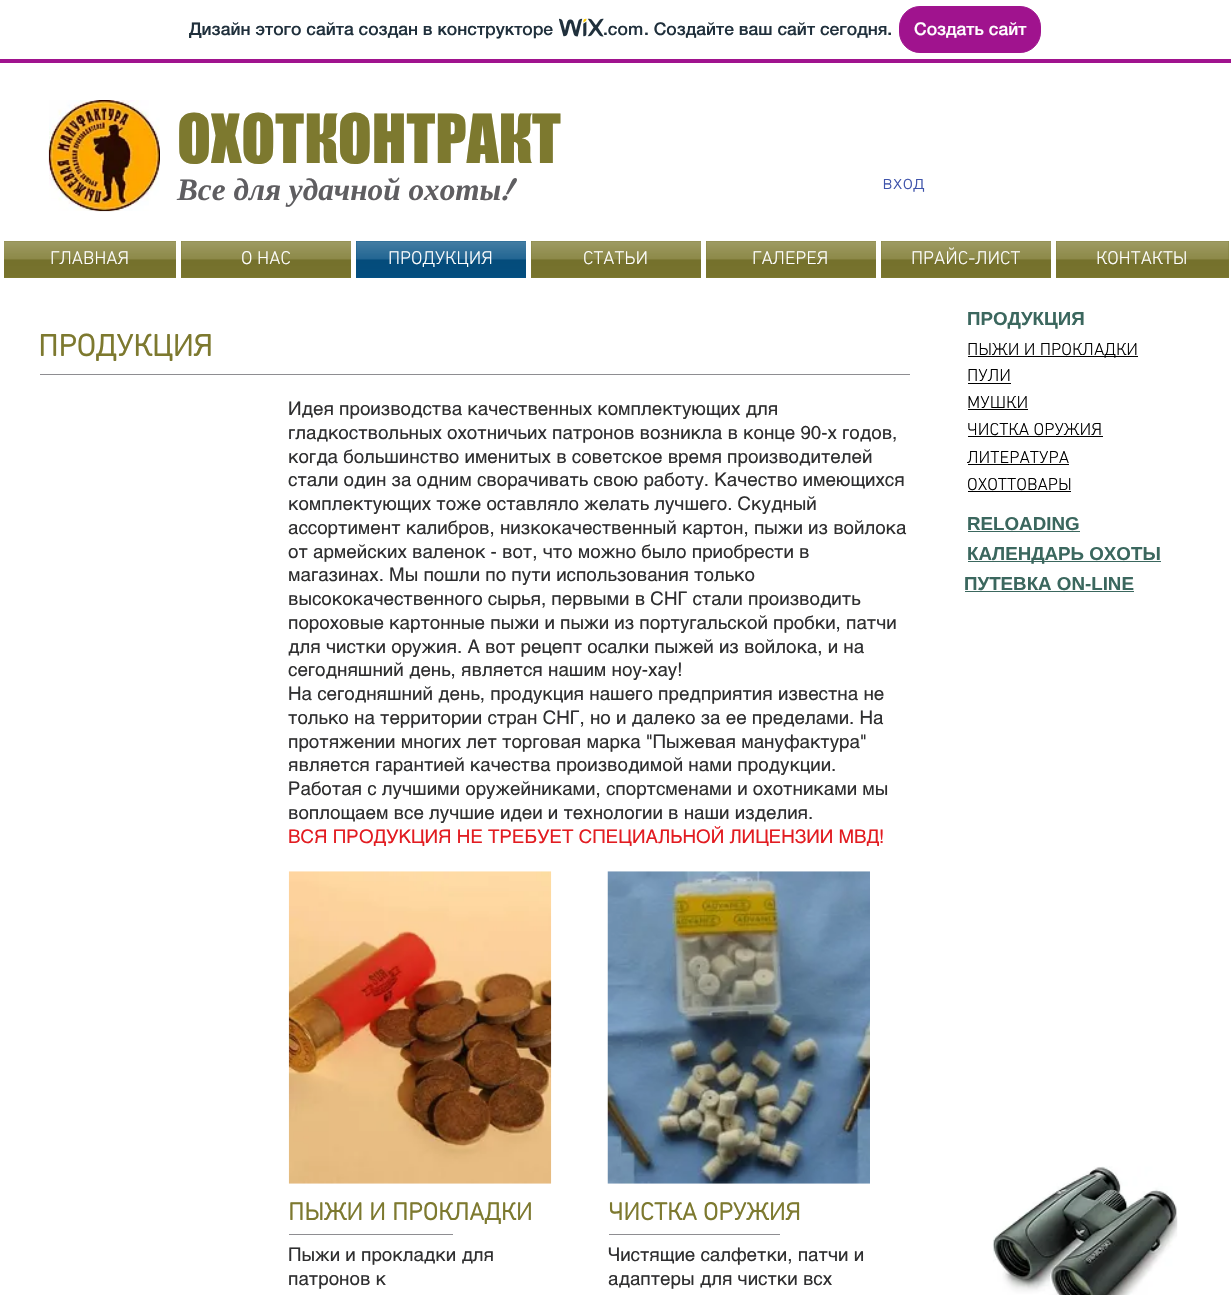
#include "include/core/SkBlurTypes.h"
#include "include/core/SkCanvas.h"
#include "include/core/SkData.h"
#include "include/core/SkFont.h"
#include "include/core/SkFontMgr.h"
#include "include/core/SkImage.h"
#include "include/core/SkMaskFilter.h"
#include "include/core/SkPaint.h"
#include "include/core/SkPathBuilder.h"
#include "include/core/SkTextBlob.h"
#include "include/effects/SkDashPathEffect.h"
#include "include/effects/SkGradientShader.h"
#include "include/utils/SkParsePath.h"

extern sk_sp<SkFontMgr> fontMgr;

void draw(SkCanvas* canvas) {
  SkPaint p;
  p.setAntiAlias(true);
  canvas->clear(SK_ColorWHITE);
  p.setColor(SkColorSetRGB(160, 19, 142));
  canvas->drawRect(SkRect::MakeLTRB(0, 59, 1231, 63), p);
  canvas->drawImageRect(SkImages::DeferredFromEncodedData(SkData::MakeFromFileName("images/1.png")), SkRect::MakeLTRB(559, 18, 604, 37), SkSamplingOptions());
  canvas->drawRoundRect(SkRect::MakeLTRB(899.5f, 6.5f, 1040.5f, 52.5f), 20.5f, 20.5f, p);
  p.setStyle(SkPaint::kStroke_Style);
  p.setStrokeWidth(1);
  canvas->drawRoundRect(SkRect::MakeLTRB(899.5f, 6.5f, 1040.5f, 52.5f), 20.5f, 20.5f, p);
  canvas->drawImageRect(SkImages::DeferredFromEncodedData(SkData::MakeFromFileName("images/2.png")), SkRect::MakeLTRB(48, 100, 160, 212), SkSamplingOptions());
  p.setStyle(SkPaint::kFill_Style);
  p.setColor(SkColorSetRGB(125, 121, 47));
  canvas->drawRect(SkRect::MakeLTRB(4, 241, 176, 278), p);
  canvas->drawImageRect(SkImages::DeferredFromEncodedData(SkData::MakeFromFileName("images/3.png")), SkRect::MakeLTRB(4, 241, 176, 277), SkSamplingOptions());
  canvas->drawRect(SkRect::MakeLTRB(181, 241, 351, 278), p);
  canvas->drawImageRect(SkImages::DeferredFromEncodedData(SkData::MakeFromFileName("images/4.png")), SkRect::MakeLTRB(181, 241, 351, 277), SkSamplingOptions());
  p.setColor(SkColorSetRGB(4, 81, 132));
  canvas->drawRect(SkRect::MakeLTRB(356, 241, 526, 278), p);
  canvas->drawImageRect(SkImages::DeferredFromEncodedData(SkData::MakeFromFileName("images/5.png")), SkRect::MakeLTRB(356, 241, 526, 277), SkSamplingOptions());
  p.setColor(SkColorSetRGB(125, 121, 47));
  canvas->drawRect(SkRect::MakeLTRB(531, 241, 701, 278), p);
  canvas->drawImageRect(SkImages::DeferredFromEncodedData(SkData::MakeFromFileName("images/4.png")), SkRect::MakeLTRB(531, 241, 701, 277), SkSamplingOptions());
  canvas->drawRect(SkRect::MakeLTRB(706, 241, 876, 278), p);
  canvas->drawImageRect(SkImages::DeferredFromEncodedData(SkData::MakeFromFileName("images/4.png")), SkRect::MakeLTRB(706, 241, 876, 277), SkSamplingOptions());
  canvas->drawRect(SkRect::MakeLTRB(881, 241, 1051, 278), p);
  canvas->drawImageRect(SkImages::DeferredFromEncodedData(SkData::MakeFromFileName("images/4.png")), SkRect::MakeLTRB(881, 241, 1051, 277), SkSamplingOptions());
  canvas->drawRect(SkRect::MakeLTRB(1056, 241, 1229, 278), p);
  canvas->drawImageRect(SkImages::DeferredFromEncodedData(SkData::MakeFromFileName("images/6.png")), SkRect::MakeLTRB(1056, 241, 1229, 277), SkSamplingOptions());
  p.setColor(SkColorSetRGB(142, 141, 145));
  canvas->drawRect(SkRect::MakeLTRB(40, 374, 910, 375), p);
  canvas->drawImageRect(SkImages::DeferredFromEncodedData(SkData::MakeFromFileName("images/7.png")), SkRect::MakeLTRB(288, 871, 552, 1184), SkSamplingOptions());
  canvas->drawImageRect(SkImages::DeferredFromEncodedData(SkData::MakeFromFileName("images/8.png")), SkRect::MakeLTRB(607, 871, 870, 1184), SkSamplingOptions());
  canvas->drawRect(SkRect::MakeLTRB(289, 1234, 453, 1235), p);
  canvas->drawRect(SkRect::MakeLTRB(609, 1234, 780, 1235), p);
  p.setColor(SK_ColorBLACK);
  canvas->drawRect(SkRect::MakeLTRB(968, 356, 1138, 357), p);
  canvas->drawRect(SkRect::MakeLTRB(968, 383, 1011, 384), p);
  canvas->drawRect(SkRect::MakeLTRB(968, 409, 1028, 410), p);
  canvas->drawRect(SkRect::MakeLTRB(968, 436, 1103, 437), p);
  canvas->drawRect(SkRect::MakeLTRB(968, 464, 1069, 465), p);
  canvas->drawRect(SkRect::MakeLTRB(968, 491, 1071, 492), p);
  p.setColor(SkColorSetRGB(59, 103, 94));
  canvas->drawRect(SkRect::MakeLTRB(968, 531, 1080, 532), p);
  canvas->drawRect(SkRect::MakeLTRB(968, 561, 1161, 562), p);
  canvas->drawRect(SkRect::MakeLTRB(965, 591, 1134, 592), p);
  canvas->drawImageRect(SkImages::DeferredFromEncodedData(SkData::MakeFromFileName("images/9.png")), SkRect::MakeLTRB(992, 1166, 1178, 1295), SkSamplingOptions());
  SkFont font1(fontMgr->matchFamilyStyle("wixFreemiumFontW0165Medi", SkFontStyle(500, SkFontStyle::kNormal_Width, SkFontStyle::kUpright_Slant)), 17.5f);
  font1.setSubpixel(true);
  p.setColor(SkColorSetRGB(32, 48, 60));
  canvas->drawString("Дизайн этого сайта создан в конструкторе", 189, 35, font1, p);
  SkFont font2(fontMgr->matchFamilyStyle("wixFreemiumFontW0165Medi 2", SkFontStyle(500, SkFontStyle::kNormal_Width, SkFontStyle::kUpright_Slant)), 17.5f);
  font2.setSubpixel(true);
  canvas->drawString(".com", 603, 35, font2, p);
  canvas->drawString(". Создайте ваш сайт сегодня.", 644, 35, font1, p);
  p.setColor(SK_ColorWHITE);
  canvas->drawString("Создать сайт", 914, 35, font1, p);
  SkFont font3(fontMgr->matchFamilyStyle("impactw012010", SkFontStyle::Normal()), 62.5f);
  font3.setSubpixel(true);
  p.setColor(SkColorSetRGB(125, 121, 47));
  canvas->drawString("ОХОТКОНТРАКТ", 177, 163, font3, p);
  SkFont font4(fontMgr->matchFamilyStyle("Liberation Serif", SkFontStyle::BoldItalic()), 31.25f);
  font4.setSubpixel(true);
  p.setColor(SkColorSetRGB(95, 94, 97));
  canvas->drawString("Все для удачной охоты", 177, 200, font4, p);
  SkFont font5(fontMgr->matchFamilyStyle("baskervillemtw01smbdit", SkFontStyle::BoldItalic()), 31.25f);
  font5.setSubpixel(true);
  canvas->drawString("!", 501, 200, font5, p);
  SkFont font6(fontMgr->matchFamilyStyle("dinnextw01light", SkFontStyle(300, SkFontStyle::kNormal_Width, SkFontStyle::kUpright_Slant)), 21);
  font6.setSubpixel(true);
  p.setColor(SkColorSetRGB(63, 84, 171));
  canvas->drawString("вход", 882, 189, font6, p);
  SkFont font7(fontMgr->matchFamilyStyle("dinnextw01light", SkFontStyle(300, SkFontStyle::kNormal_Width, SkFontStyle::kUpright_Slant)), 18.75f);
  font7.setSubpixel(true);
  p.setColor(SK_ColorWHITE);
  canvas->drawString("ГЛАВНАЯ", 50, 264, font7, p);
  canvas->drawString("О НАС", 241, 264, font7, p);
  canvas->drawString("ПРОДУКЦИЯ", 388, 264, font7, p);
  canvas->drawString("СТАТЬИ", 583, 264, font7, p);
  canvas->drawString("ГАЛЕРЕЯ", 752, 264, font7, p);
  canvas->drawString("ПРАЙС-ЛИСТ", 911, 264, font7, p);
  canvas->drawString("КОНТАКТЫ", 1096, 264, font7, p);
  SkFont font8(fontMgr->matchFamilyStyle("dinnextw01light", SkFontStyle::Bold()), 31.25f);
  font8.setSubpixel(true);
  p.setColor(SkColorSetRGB(125, 121, 47));
  canvas->drawString("ПРОДУКЦИЯ", 38, 356, font8, p);
  SkFont font9(fontMgr->matchFamilyStyle("helvetica", SkFontStyle::Normal()), 18.75f);
  font9.setSubpixel(true);
  p.setColor(SkColorSetRGB(47, 47, 48));
  canvas->drawString("Идея производства качественных комплектующих для", 288, 415, font9, p);
  canvas->drawString("гладкоствольных охотничьих патронов возникла в конце 90-х годов,", 288, 439, font9, p);
  canvas->drawString("когда большинство именитых в советское время производителей", 288, 463, font9, p);
  canvas->drawString("стали один за одним сворачивать свою работу. Качество имеющихся", 288, 486, font9, p);
  canvas->drawString("комплектующих тоже оставляло желать лучшего. Скудный", 288, 510, font9, p);
  canvas->drawString("ассортимент калибров, низкокачественный картон, пыжи из войлока", 288, 534, font9, p);
  canvas->drawString("от армейских валенок - вот, что можно было приобрести в", 288, 558, font9, p);
  canvas->drawString("магазинах. Мы пошли по пути использования только", 288, 581, font9, p);
  canvas->drawString("высококачественного сырья, первыми в СНГ стали производить", 288, 605, font9, p);
  canvas->drawString("пороховые картонные пыжи и пыжи из португальской пробки, патчи", 288, 629, font9, p);
  canvas->drawString("для чистки оружия. А вот рецепт осалки пыжей из войлока, и на", 288, 653, font9, p);
  canvas->drawString("сегодняшний день, является нашим ноу-хау!", 288, 676, font9, p);
  canvas->drawString("На сегодняшний день, продукция нашего предприятия известна не", 288, 700, font9, p);
  canvas->drawString("только на территории стран СНГ, но и далеко за ее пределами. На", 288, 724, font9, p);
  canvas->drawString("протяжении многих лет торговая марка \"Пыжевая мануфактура\"", 288, 748, font9, p);
  canvas->drawString("является гарантией качества производимой нами продукции.", 288, 771, font9, p);
  canvas->drawString("Работая с лучшими оружейниками, спортсменами и охотниками мы", 288, 795, font9, p);
  canvas->drawString("воплощаем все лучшие идеи и технологии в наши изделия.", 288, 819, font9, p);
  p.setColor(SkColorSetRGB(226, 28, 33));
  canvas->drawString("ВСЯ ПРОДУКЦИЯ НЕ ТРЕБУЕТ СПЕЦИАЛЬНОЙ ЛИЦЕНЗИИ МВД!", 288, 843, font9, p);
  SkFont font10(fontMgr->matchFamilyStyle("dinnextw01light", SkFontStyle::Bold()), 25);
  font10.setSubpixel(true);
  p.setColor(SkColorSetRGB(125, 121, 47));
  canvas->drawString("ПЫЖИ И ПРОКЛАДКИ", 288, 1220, font10, p);
  canvas->drawString("ЧИСТКА ОРУЖИЯ", 608, 1220, font10, p);
  p.setColor(SkColorSetRGB(47, 47, 48));
  canvas->drawString("Пыжи и прокладки для", 288, 1261, font9, p);
  canvas->drawString("патронов к", 288, 1285, font9, p);
  canvas->drawString("Чистящие салфетки, патчи и", 608, 1261, font9, p);
  canvas->drawString("адаптеры для чистки всх", 608, 1285, font9, p);
  SkFont font11(fontMgr->matchFamilyStyle("Liberation Sans", SkFontStyle::Bold()), 18.75f);
  font11.setSubpixel(true);
  p.setColor(SkColorSetRGB(59, 103, 94));
  canvas->drawString("ПРОДУКЦИЯ", 967, 325, font11, p);
  SkFont font12(fontMgr->matchFamilyStyle("dinnextw01light", SkFontStyle(300, SkFontStyle::kNormal_Width, SkFontStyle::kUpright_Slant)), 17.5f);
  font12.setSubpixel(true);
  p.setColor(SK_ColorBLACK);
  canvas->drawString("ПЫЖИ И ПРОКЛАДКИ", 967, 355, font12, p);
  canvas->drawString("ПУЛИ", 967, 381, font12, p);
  canvas->drawString("МУШКИ", 967, 408, font12, p);
  canvas->drawString("ЧИСТКА ОРУЖИЯ", 967, 435, font12, p);
  canvas->drawString("ЛИТЕРАТУРА", 967, 463, font12, p);
  canvas->drawString("ОХОТТОВАРЫ", 967, 490, font12, p);
  p.setColor(SkColorSetRGB(59, 103, 94));
  canvas->drawString("RELOADING", 967, 530, font11, p);
  canvas->drawString("КАЛЕНДАРЬ ОХОТЫ", 967, 560, font11, p);
  canvas->drawString("ПУТЕВКА ON-LINE", 964, 590, font11, p);
}
